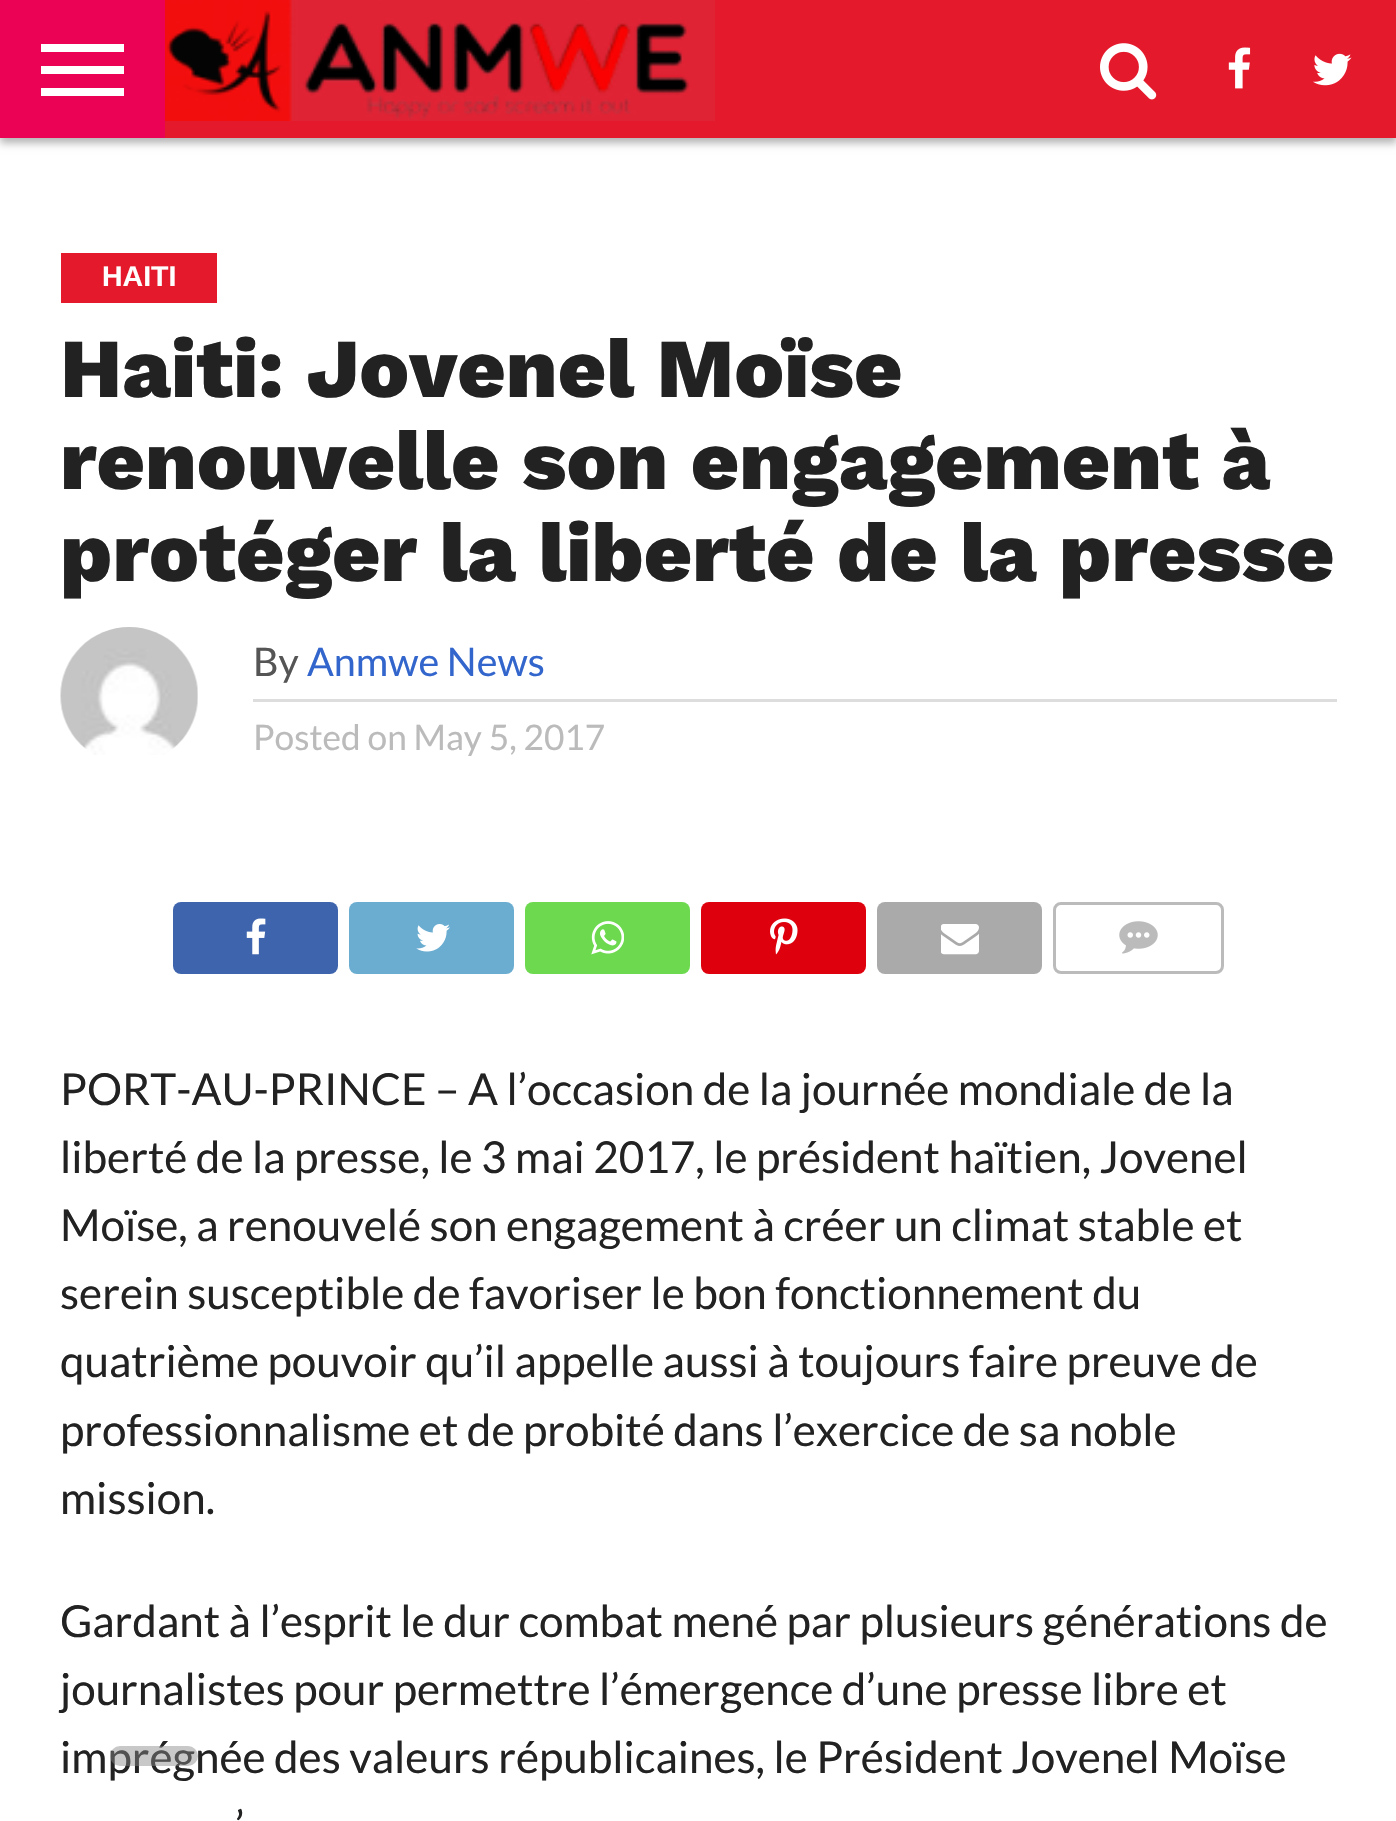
#include "include/core/SkBlurTypes.h"
#include "include/core/SkCanvas.h"
#include "include/core/SkData.h"
#include "include/core/SkFont.h"
#include "include/core/SkFontMgr.h"
#include "include/core/SkImage.h"
#include "include/core/SkMaskFilter.h"
#include "include/core/SkPaint.h"
#include "include/core/SkPathBuilder.h"
#include "include/core/SkTextBlob.h"
#include "include/effects/SkDashPathEffect.h"
#include "include/effects/SkGradientShader.h"
#include "include/utils/SkParsePath.h"

extern sk_sp<SkFontMgr> fontMgr;

void draw(SkCanvas* canvas) {
  SkPaint p;
  p.setAntiAlias(true);
  canvas->clear(SK_ColorWHITE);
  p.setColor(SkColorSetARGB(77, 0, 0, 0));
  p.setMaskFilter(SkMaskFilter::MakeBlur(kNormal_SkBlurStyle, 4));
  canvas->drawRect(SkRect::MakeLTRB(0, 6, 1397, 143), p);
  p.setMaskFilter(nullptr);
  p.setColor(SkColorSetRGB(229, 25, 44));
  canvas->drawRect(SkRect::MakeLTRB(165, 0, 1396, 138), p);
  p.setColor(SkColorSetRGB(235, 2, 84));
  canvas->drawRect(SkRect::MakeLTRB(0, 0, 165, 138), p);
  p.setColor(SK_ColorWHITE);
  canvas->drawRect(SkRect::MakeLTRB(41, 44, 124, 52), p);
  canvas->drawRect(SkRect::MakeLTRB(41, 66, 124, 74), p);
  canvas->drawRect(SkRect::MakeLTRB(41, 88, 124, 96), p);
  canvas->drawImageRect(SkImages::DeferredFromEncodedData(SkData::MakeFromFileName("images/1.png")), SkRect::MakeLTRB(165, 0, 715, 121), SkSamplingOptions());
  canvas->drawImageRect(SkImages::DeferredFromEncodedData(SkData::MakeFromFileName("images/2.png")), SkRect::MakeLTRB(1100, 43, 1157, 100), SkSamplingOptions());
  canvas->drawImageRect(SkImages::DeferredFromEncodedData(SkData::MakeFromFileName("images/3.png")), SkRect::MakeLTRB(1228, 47, 1251, 89), SkSamplingOptions());
  canvas->drawImageRect(SkImages::DeferredFromEncodedData(SkData::MakeFromFileName("images/4.png")), SkRect::MakeLTRB(1313, 53, 1352, 86), SkSamplingOptions());
  p.setColor(SkColorSetRGB(229, 25, 44));
  canvas->drawRect(SkRect::MakeLTRB(61, 253, 217, 303), p);
  canvas->drawImageRect(SkImages::DeferredFromEncodedData(SkData::MakeFromFileName("images/5.png")), SkRect::MakeLTRB(60, 627, 198, 755), SkSamplingOptions());
  p.setColor(SkColorSetRGB(221, 221, 221));
  canvas->drawRect(SkRect::MakeLTRB(253, 699, 1337, 702), p);
  p.setColor(SkColorSetRGB(62, 100, 173));
  canvas->drawRoundRect(SkRect::MakeLTRB(173, 902, 338, 974), 8, 8, p);
  canvas->drawImageRect(SkImages::DeferredFromEncodedData(SkData::MakeFromFileName("images/6.png")), SkRect::MakeLTRB(246, 918, 266, 955), SkSamplingOptions());
  p.setColor(SkColorSetRGB(106, 173, 209));
  canvas->drawRoundRect(SkRect::MakeLTRB(349, 902, 514, 974), 8, 8, p);
  canvas->drawImageRect(SkImages::DeferredFromEncodedData(SkData::MakeFromFileName("images/7.png")), SkRect::MakeLTRB(416, 924, 450, 952), SkSamplingOptions());
  p.setColor(SkColorSetRGB(108, 217, 78));
  canvas->drawRoundRect(SkRect::MakeLTRB(525, 902, 690, 974), 8, 8, p);
  canvas->drawImageRect(SkImages::DeferredFromEncodedData(SkData::MakeFromFileName("images/8.png")), SkRect::MakeLTRB(591, 921, 624, 955), SkSamplingOptions());
  p.setColor(SkColorSetRGB(222, 1, 13));
  canvas->drawRoundRect(SkRect::MakeLTRB(701, 902, 866, 974), 8, 8, p);
  canvas->drawImageRect(SkImages::DeferredFromEncodedData(SkData::MakeFromFileName("images/9.png")), SkRect::MakeLTRB(770, 918, 798, 955), SkSamplingOptions());
  p.setColor(SkColorSetRGB(170, 170, 170));
  canvas->drawRoundRect(SkRect::MakeLTRB(877, 902, 1042, 974), 8, 8, p);
  canvas->drawImageRect(SkImages::DeferredFromEncodedData(SkData::MakeFromFileName("images/10.png")), SkRect::MakeLTRB(941, 924, 979, 955), SkSamplingOptions());
  p.setStyle(SkPaint::kStroke_Style);
  p.setStrokeWidth(3);
  p.setColor(SkColorSetRGB(187, 187, 187));
  canvas->drawRoundRect(SkRect::MakeLTRB(1054.5f, 903.5f, 1222.5f, 972.5f), 6.5f, 6.5f, p);
  canvas->drawImageRect(SkImages::DeferredFromEncodedData(SkData::MakeFromFileName("images/11.png")), SkRect::MakeLTRB(1119, 921, 1158, 954), SkSamplingOptions());
  SkFont font1(fontMgr->matchFamilyStyle("Liberation Sans", SkFontStyle::Bold()), 28.5f);
  font1.setSubpixel(true);
  p.setStyle(SkPaint::kFill_Style);
  p.setColor(SK_ColorWHITE);
  canvas->drawString("HAITI", 102, 286, font1, p);
  SkFont font2(fontMgr->matchFamilyStyle("Work Sans", SkFontStyle(800, SkFontStyle::kNormal_Width, SkFontStyle::kUpright_Slant)), 83.6f);
  font2.setSubpixel(true);
  p.setColor(SkColorSetRGB(34, 34, 34));
  canvas->drawString("Haiti: Jovenel Moïse", 60, 397, font2, p);
  canvas->drawString("renouvelle son engagement à", 60, 489, font2, p);
  canvas->drawString("protéger la liberté de la presse", 60, 581, font2, p);
  SkFont font3(fontMgr->matchFamilyStyle("Lato", SkFontStyle::Normal()), 39.5f);
  font3.setSubpixel(true);
  p.setColor(SkColorSetRGB(85, 85, 85));
  canvas->drawString("By", 253, 676, font3, p);
  p.setColor(SkColorSetRGB(51, 102, 204));
  canvas->drawString("Anmwe News", 307, 676, font3, p);
  SkFont font4(fontMgr->matchFamilyStyle("Lato", SkFontStyle::Normal()), 35.25f);
  font4.setSubpixel(true);
  p.setColor(SkColorSetRGB(187, 187, 187));
  canvas->drawString("Posted on May 5, 2017", 253, 750, font4, p);
  SkFont font5(fontMgr->matchFamilyStyle("Lato", SkFontStyle::Normal()), 44);
  font5.setSubpixel(true);
  p.setColor(SkColorSetRGB(34, 34, 34));
  canvas->drawString("PORT-AU-PRINCE – A l’occasion de la journée mondiale de la", 60, 1105, font5, p);
  canvas->drawString("liberté de la presse, le 3 mai 2017, le président haïtien, Jovenel", 60, 1173, font5, p);
  canvas->drawString("Moïse, a renouvelé son engagement à créer un climat stable et", 60, 1241, font5, p);
  canvas->drawString("serein susceptible de favoriser le bon fonctionnement du", 60, 1309, font5, p);
  canvas->drawString("quatrième pouvoir qu’il appelle aussi à toujours faire preuve de", 60, 1377, font5, p);
  canvas->drawString("professionnalisme et de probité dans l’exercice de sa noble", 60, 1446, font5, p);
  canvas->drawString("mission.", 60, 1514, font5, p);
  canvas->drawString("Gardant à l’esprit le dur combat mené par plusieurs générations de", 60, 1637, font5, p);
  canvas->drawString("journalistes pour permettre l’émergence d’une presse libre et", 60, 1705, font5, p);
  canvas->drawString("imprégnée des valeurs républicaines, le Président Jovenel Moïse", 60, 1773, font5, p);
  canvas->drawString("’", 235, 1842, font5, p);
  p.setColor(SkColorSetARGB(117, 136, 136, 136));
  canvas->drawRoundRect(SkRect::MakeLTRB(110, 1746, 198, 1766), 10, 10, p);
}
